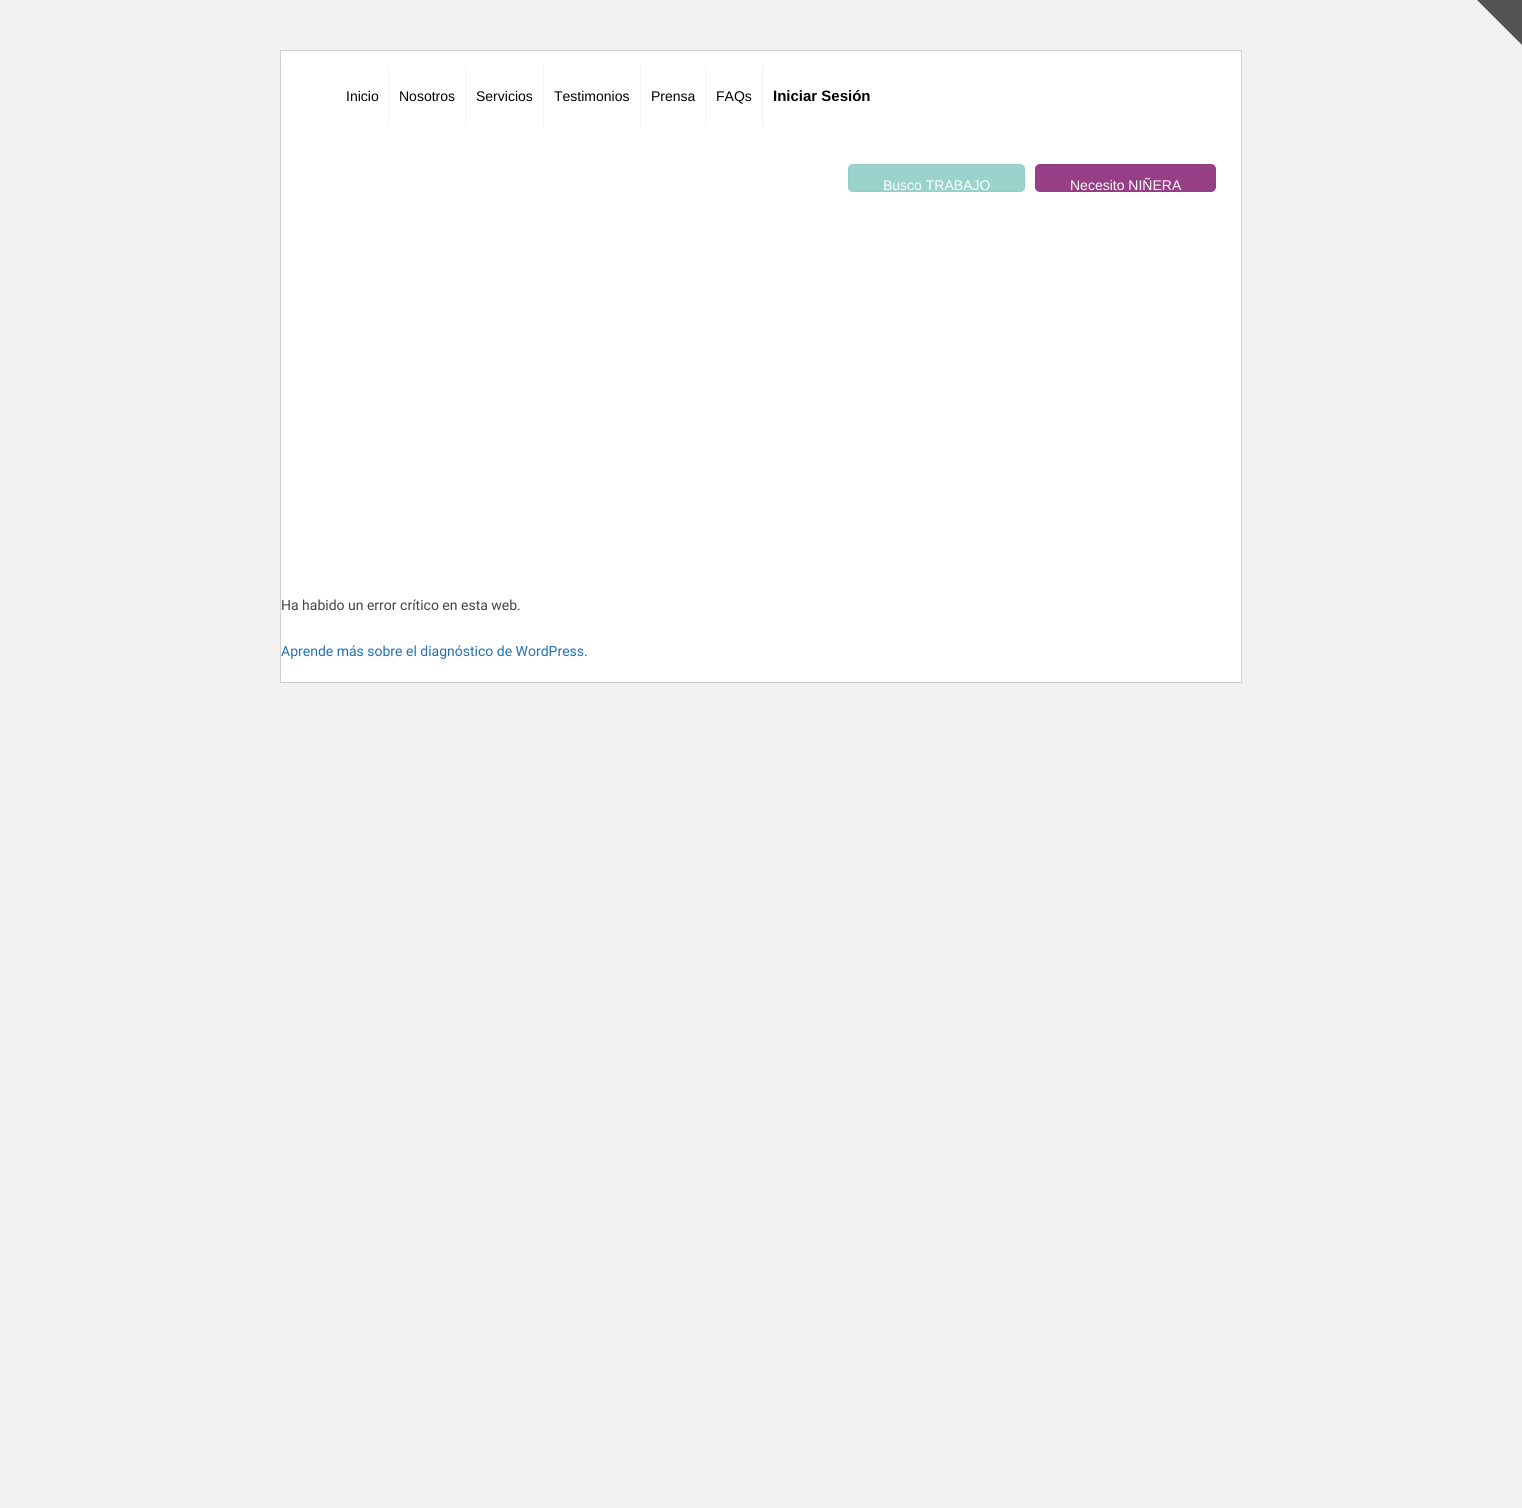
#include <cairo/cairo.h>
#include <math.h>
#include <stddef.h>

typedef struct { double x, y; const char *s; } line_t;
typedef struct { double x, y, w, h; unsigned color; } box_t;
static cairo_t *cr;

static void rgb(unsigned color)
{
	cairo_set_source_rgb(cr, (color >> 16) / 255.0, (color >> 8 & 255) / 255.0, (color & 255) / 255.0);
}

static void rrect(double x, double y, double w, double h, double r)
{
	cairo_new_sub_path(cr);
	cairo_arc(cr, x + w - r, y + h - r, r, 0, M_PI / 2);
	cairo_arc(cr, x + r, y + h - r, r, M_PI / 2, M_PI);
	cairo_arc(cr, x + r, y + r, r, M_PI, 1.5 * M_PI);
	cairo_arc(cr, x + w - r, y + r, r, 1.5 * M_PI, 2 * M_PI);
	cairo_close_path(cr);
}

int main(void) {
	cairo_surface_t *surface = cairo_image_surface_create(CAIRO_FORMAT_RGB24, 1522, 1508);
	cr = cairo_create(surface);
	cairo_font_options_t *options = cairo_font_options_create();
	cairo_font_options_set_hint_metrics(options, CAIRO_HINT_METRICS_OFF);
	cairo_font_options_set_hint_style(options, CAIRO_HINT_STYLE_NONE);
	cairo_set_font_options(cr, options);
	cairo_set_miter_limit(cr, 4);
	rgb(0xf1f1f1);
	cairo_paint(cr);
	rgb(0xffffff);
	cairo_rectangle(cr, 280.5, 50.5, 961, 632);
	cairo_fill_preserve(cr);
	rgb(0xccd0d4);
	cairo_set_line_width(cr, 1);
	cairo_stroke(cr);
	rgb(0x545454);
	cairo_new_path(cr);
	cairo_move_to(cr, 1522, 0);
	cairo_line_to(cr, 1522, 45);
	cairo_line_to(cr, 1477, 0);
	cairo_close_path(cr);
	cairo_fill(cr);
	{
		static const box_t items[] = {
			{388, 66, 1, 60, 0xf2f2f2},
			{465, 66, 1, 60, 0xf2f2f2},
			{543, 66, 1, 60, 0xf2f2f2},
			{640, 66, 1, 60, 0xf2f2f2},
			{705, 66, 1, 60, 0xf2f2f2},
			{762, 66, 1, 60, 0xf2f2f2},
		};
		for (size_t i = 0; i < sizeof items / sizeof *items; i++) {
			rgb(items[i].color);
			cairo_rectangle(cr, items[i].x, items[i].y, items[i].w, items[i].h);
			cairo_fill(cr);
		}
	}
	rgb(0x99d3cc);
	rrect(848, 164, 177, 28, 5);
	cairo_fill(cr);
	cairo_rectangle(cr, 848.5, 164.5, 176, 27);
	cairo_set_source_rgba(cr, 0, 0, 0, 0.03);
	cairo_stroke(cr);
	rgb(0x973f86);
	rrect(1035, 164, 181, 28, 5);
	cairo_fill(cr);
	cairo_rectangle(cr, 1035.5, 164.5, 180, 27);
	cairo_set_source_rgba(cr, 0, 0, 0, 0.03);
	cairo_stroke(cr);
	cairo_select_font_face(cr, "Liberation Sans", CAIRO_FONT_SLANT_NORMAL, CAIRO_FONT_WEIGHT_NORMAL);
	cairo_set_font_size(cr, 14);
	rgb(0x000000);
	{
		static const line_t items[] = {
			{346, 101, "Inicio"},
			{399, 101, "Nosotros"},
			{476, 101, "Servicios"},
			{554, 101, "Testimonios"},
			{651, 101, "Prensa"},
			{716, 101, "FAQs"},
		};
		for (size_t i = 0; i < sizeof items / sizeof *items; i++) {
			cairo_move_to(cr, items[i].x, items[i].y);
			cairo_show_text(cr, items[i].s);
		}
	}
	cairo_select_font_face(cr, "Liberation Sans", CAIRO_FONT_SLANT_NORMAL, CAIRO_FONT_WEIGHT_BOLD);
	cairo_set_font_size(cr, 15);
	cairo_move_to(cr, 773, 101);
	cairo_show_text(cr, "Iniciar Sesión");
	cairo_select_font_face(cr, "Liberation Sans", CAIRO_FONT_SLANT_NORMAL, CAIRO_FONT_WEIGHT_NORMAL);
	cairo_set_font_size(cr, 14);
	rgb(0xffffff);
	cairo_move_to(cr, 883, 190);
	cairo_show_text(cr, "Busco TRABAJO");
	cairo_move_to(cr, 1070, 190);
	cairo_show_text(cr, "Necesito NIÑERA");
	cairo_select_font_face(cr, "Roboto", CAIRO_FONT_SLANT_NORMAL, CAIRO_FONT_WEIGHT_NORMAL);
	rgb(0x444444);
	cairo_move_to(cr, 281, 610);
	cairo_show_text(cr, "Ha habido un error crítico en esta web.");
	rgb(0x2271b1);
	cairo_move_to(cr, 281, 656);
	cairo_show_text(cr, "Aprende más sobre el diagnóstico de WordPress.");
	cairo_surface_write_to_png(surface, "page.png");
	cairo_font_options_destroy(options);
	cairo_destroy(cr);
	cairo_surface_destroy(surface);
	return 0;
}
